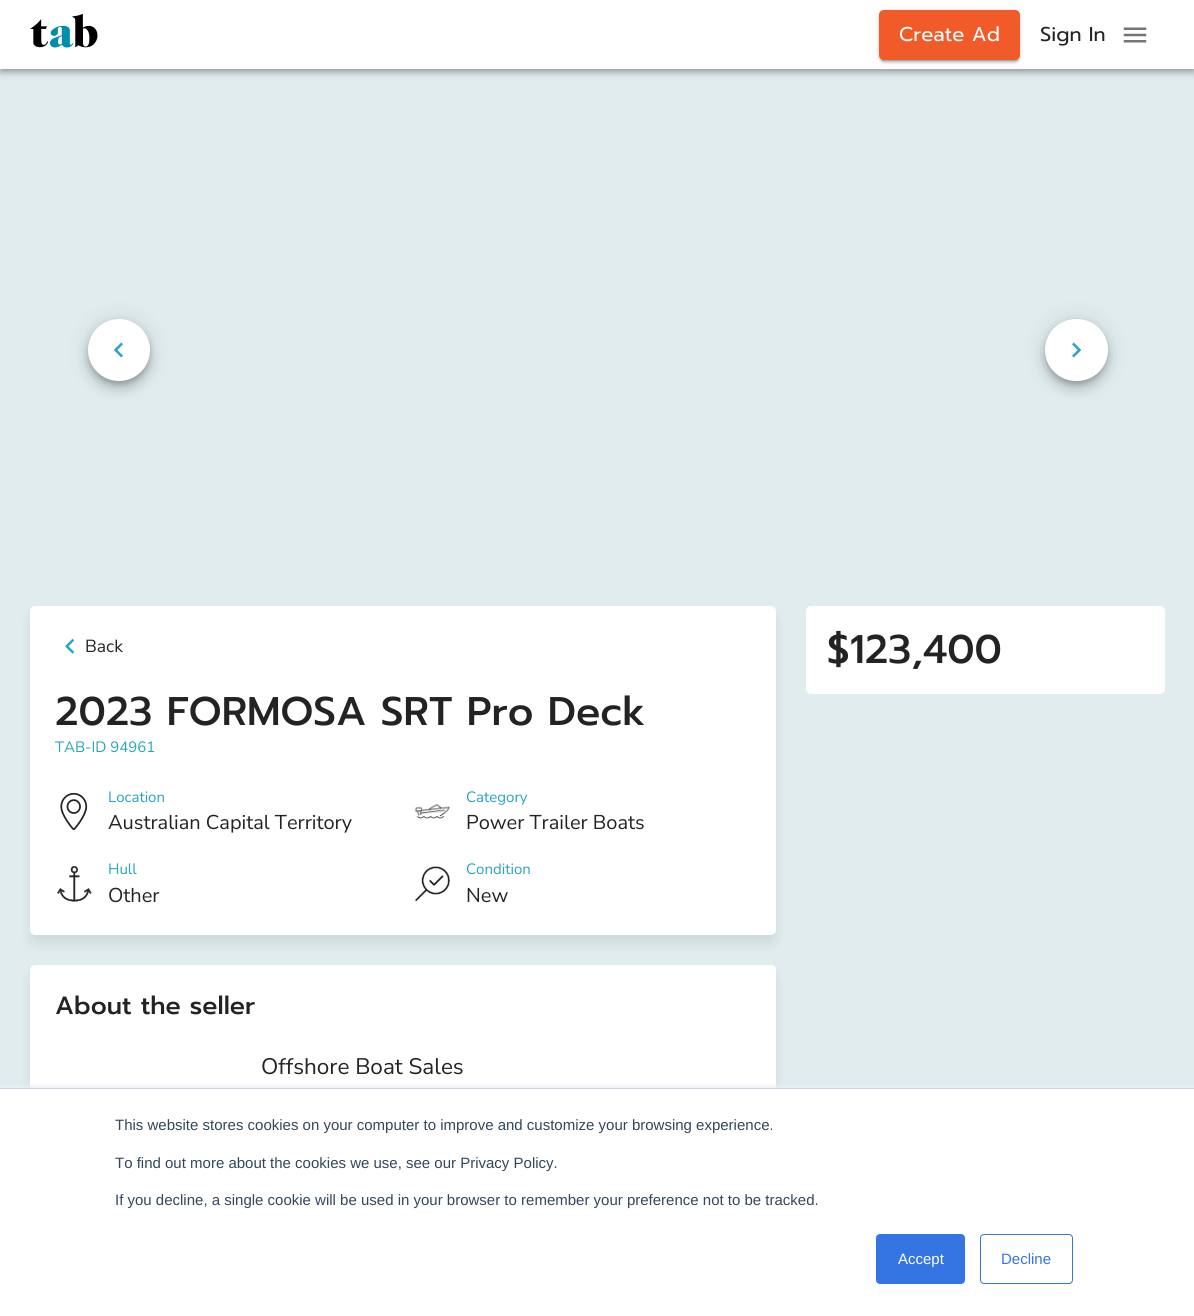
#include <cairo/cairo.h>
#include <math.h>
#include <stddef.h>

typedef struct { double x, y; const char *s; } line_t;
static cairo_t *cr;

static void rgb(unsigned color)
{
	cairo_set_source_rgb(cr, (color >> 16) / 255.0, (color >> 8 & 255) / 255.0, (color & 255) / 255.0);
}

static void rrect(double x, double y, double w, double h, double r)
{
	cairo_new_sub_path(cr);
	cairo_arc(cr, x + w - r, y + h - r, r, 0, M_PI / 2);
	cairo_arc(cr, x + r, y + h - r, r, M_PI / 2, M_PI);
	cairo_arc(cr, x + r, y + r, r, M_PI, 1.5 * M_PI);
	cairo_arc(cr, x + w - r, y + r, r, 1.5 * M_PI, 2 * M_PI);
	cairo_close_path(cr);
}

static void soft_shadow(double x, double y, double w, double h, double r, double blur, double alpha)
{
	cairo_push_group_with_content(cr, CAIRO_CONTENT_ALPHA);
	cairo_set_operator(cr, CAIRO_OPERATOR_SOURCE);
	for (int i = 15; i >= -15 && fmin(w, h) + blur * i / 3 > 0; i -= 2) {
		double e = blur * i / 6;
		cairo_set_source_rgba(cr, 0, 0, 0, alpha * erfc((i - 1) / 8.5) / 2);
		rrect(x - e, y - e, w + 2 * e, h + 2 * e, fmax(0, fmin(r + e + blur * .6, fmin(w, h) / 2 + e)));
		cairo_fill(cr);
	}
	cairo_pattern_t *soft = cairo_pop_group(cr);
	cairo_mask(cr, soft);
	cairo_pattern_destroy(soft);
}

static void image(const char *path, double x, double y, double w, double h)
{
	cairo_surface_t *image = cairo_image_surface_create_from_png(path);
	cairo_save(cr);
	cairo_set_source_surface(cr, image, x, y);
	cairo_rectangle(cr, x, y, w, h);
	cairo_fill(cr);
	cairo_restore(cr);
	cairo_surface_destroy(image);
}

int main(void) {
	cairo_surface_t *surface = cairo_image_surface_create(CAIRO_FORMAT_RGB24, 1194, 1316);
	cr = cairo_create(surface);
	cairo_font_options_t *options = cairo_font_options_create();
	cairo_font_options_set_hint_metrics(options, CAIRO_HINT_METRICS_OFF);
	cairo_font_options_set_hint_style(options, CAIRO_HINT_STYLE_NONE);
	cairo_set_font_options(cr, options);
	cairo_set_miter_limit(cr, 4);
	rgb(0xe0ecee);
	cairo_paint(cr);
	rgb(0x000000);
	soft_shadow(0, 1, 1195, 69, 0, 6, 0.12);
	soft_shadow(0, 5, 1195, 69, 0, 3, 0.14);
	soft_shadow(1, 4, 1193, 66, 0, 2.5, 0.2);
	rgb(0xffffff);
	cairo_rectangle(cr, 0, 0, 1194, 69);
	cairo_fill(cr);
	image("img/1.png", 30, 14, 68, 34);
	rgb(0x000000);
	soft_shadow(879, 11, 141, 50, 5, 3, 0.12);
	soft_shadow(879, 13, 141, 50, 5, 1, 0.14);
	soft_shadow(881, 16, 137, 45, 2.5, 0.5, 0.2);
	rgb(0xf15a29);
	rrect(879, 10, 141, 50, 5);
	cairo_fill(cr);
	image("img/2.png", 1123, 27, 24, 16);
	rgb(0x000000);
	soft_shadow(88, 320, 62, 63, 31, 11, 0.12);
	soft_shadow(88, 326, 62, 63, 31, 6, 0.14);
	soft_shadow(89, 324, 60, 60, 30, 3, 0.2);
	rgb(0xffffff);
	cairo_arc(cr, 119, 350, 31, 0, 2 * M_PI);
	cairo_fill(cr);
	image("img/3.png", 113, 342, 10, 16);
	rgb(0x000000);
	soft_shadow(1045, 320, 63, 63, 31.5, 11, 0.12);
	soft_shadow(1045, 326, 63, 63, 31.5, 6, 0.14);
	soft_shadow(1046, 324, 60, 60, 30, 3, 0.2);
	rgb(0xffffff);
	rrect(1045, 319, 63, 62, 31);
	cairo_fill(cr);
	image("img/4.png", 1072, 342, 10, 16);
	rgb(0x000000);
	soft_shadow(30, 615, 746, 329, 5, 6, 0.08);
	rgb(0xffffff);
	rrect(30, 606, 746, 329, 5);
	cairo_fill(cr);
	image("img/5.png", 65, 638, 10, 16);
	image("img/6.png", 60, 793, 28, 37);
	image("img/7.png", 414, 803, 36, 16);
	image("img/8.png", 57, 866, 35, 36);
	image("img/9.png", 415, 866, 35, 36);
	rgb(0x000000);
	soft_shadow(30, 974, 746, 259, 5, 6, 0.08);
	rgb(0xffffff);
	rrect(30, 965, 746, 259, 5);
	cairo_fill(cr);
	rrect(806, 606, 359, 88, 5);
	cairo_fill(cr);
	rgb(0xeaf0f6);
	soft_shadow(0, 1086, 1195, 229, 0, 2, 1);
	rgb(0xffffff);
	cairo_rectangle(cr, 0, 1089, 1194, 227);
	cairo_fill(cr);
	rgb(0xcbd6e2);
	cairo_rectangle(cr, 0, 1088, 1194, 1);
	cairo_fill(cr);
	rgb(0x3574e3);
	rrect(876.5, 1234.5, 88, 49, 3.5);
	cairo_fill_preserve(cr);
	cairo_set_line_width(cr, 1);
	cairo_stroke(cr);
	rrect(980.5, 1234.5, 92, 49, 3.5);
	cairo_stroke(cr);
	cairo_select_font_face(cr, "Prompt", CAIRO_FONT_SLANT_NORMAL, CAIRO_FONT_WEIGHT_NORMAL);
	cairo_set_font_size(cr, 20);
	rgb(0xffffff);
	cairo_move_to(cr, 899, 41);
	cairo_show_text(cr, "Create Ad");
	rgb(0x232323);
	cairo_move_to(cr, 1040, 41);
	cairo_show_text(cr, "Sign In");
	cairo_select_font_face(cr, "Nunito Sans", CAIRO_FONT_SLANT_NORMAL, CAIRO_FONT_WEIGHT_NORMAL);
	cairo_set_font_size(cr, 17.5);
	cairo_move_to(cr, 85, 652);
	cairo_show_text(cr, "Back");
	cairo_select_font_face(cr, "Prompt Medium", CAIRO_FONT_SLANT_NORMAL, CAIRO_FONT_WEIGHT_NORMAL);
	cairo_set_font_size(cr, 40);
	cairo_move_to(cr, 55, 725);
	cairo_show_text(cr, "2023 FORMOSA SRT Pro Deck");
	cairo_select_font_face(cr, "Nunito Sans", CAIRO_FONT_SLANT_NORMAL, CAIRO_FONT_WEIGHT_NORMAL);
	cairo_set_font_size(cr, 15);
	rgb(0x27a4bf);
	cairo_move_to(cr, 55, 752);
	cairo_show_text(cr, "TAB-ID 94961");
	cairo_move_to(cr, 108, 802);
	cairo_show_text(cr, "Location");
	cairo_set_font_size(cr, 20);
	rgb(0x232323);
	cairo_move_to(cr, 108, 829);
	cairo_show_text(cr, "Australian Capital Territory");
	cairo_set_font_size(cr, 15);
	rgb(0x27a4bf);
	cairo_move_to(cr, 466, 802);
	cairo_show_text(cr, "Category");
	cairo_set_font_size(cr, 20);
	rgb(0x232323);
	cairo_move_to(cr, 466, 829);
	cairo_show_text(cr, "Power Trailer Boats");
	cairo_set_font_size(cr, 15);
	rgb(0x27a4bf);
	cairo_move_to(cr, 108, 874);
	cairo_show_text(cr, "Hull");
	cairo_set_font_size(cr, 20);
	rgb(0x232323);
	cairo_move_to(cr, 108, 902);
	cairo_show_text(cr, "Other");
	cairo_set_font_size(cr, 15);
	rgb(0x27a4bf);
	cairo_move_to(cr, 466, 874);
	cairo_show_text(cr, "Condition");
	cairo_set_font_size(cr, 20);
	rgb(0x232323);
	cairo_move_to(cr, 466, 902);
	cairo_show_text(cr, "New");
	cairo_select_font_face(cr, "Prompt Medium", CAIRO_FONT_SLANT_NORMAL, CAIRO_FONT_WEIGHT_NORMAL);
	cairo_set_font_size(cr, 25);
	cairo_move_to(cr, 55, 1014);
	cairo_show_text(cr, "About the seller");
	cairo_select_font_face(cr, "Nunito Sans", CAIRO_FONT_SLANT_NORMAL, CAIRO_FONT_WEIGHT_NORMAL);
	cairo_set_font_size(cr, 22.5);
	cairo_move_to(cr, 261, 1074);
	cairo_show_text(cr, "Offshore Boat Sales");
	cairo_select_font_face(cr, "Prompt Medium", CAIRO_FONT_SLANT_NORMAL, CAIRO_FONT_WEIGHT_NORMAL);
	cairo_set_font_size(cr, 40);
	cairo_move_to(cr, 827, 663);
	cairo_show_text(cr, "$123,400");
	cairo_select_font_face(cr, "Liberation Sans", CAIRO_FONT_SLANT_NORMAL, CAIRO_FONT_WEIGHT_NORMAL);
	cairo_set_font_size(cr, 15);
	rgb(0x33475b);
	{
		static const line_t items[] = {
			{115, 1130, "This website stores cookies on your computer to improve and customize your browsing experience."},
			{115, 1168, "To find out more about the cookies we use, see our Privacy Policy."},
			{115, 1205, "If you decline, a single cookie will be used in your browser to remember your preference not to be tracked."},
		};
		for (size_t i = 0; i < sizeof items / sizeof *items; i++) {
			cairo_move_to(cr, items[i].x, items[i].y);
			cairo_show_text(cr, items[i].s);
		}
	}
	rgb(0xffffff);
	cairo_move_to(cr, 898, 1264);
	cairo_show_text(cr, "Accept");
	rgb(0x3574e3);
	cairo_move_to(cr, 1001, 1264);
	cairo_show_text(cr, "Decline");
	cairo_surface_write_to_png(surface, "page.png");
	cairo_font_options_destroy(options);
	cairo_destroy(cr);
	cairo_surface_destroy(surface);
	return 0;
}
